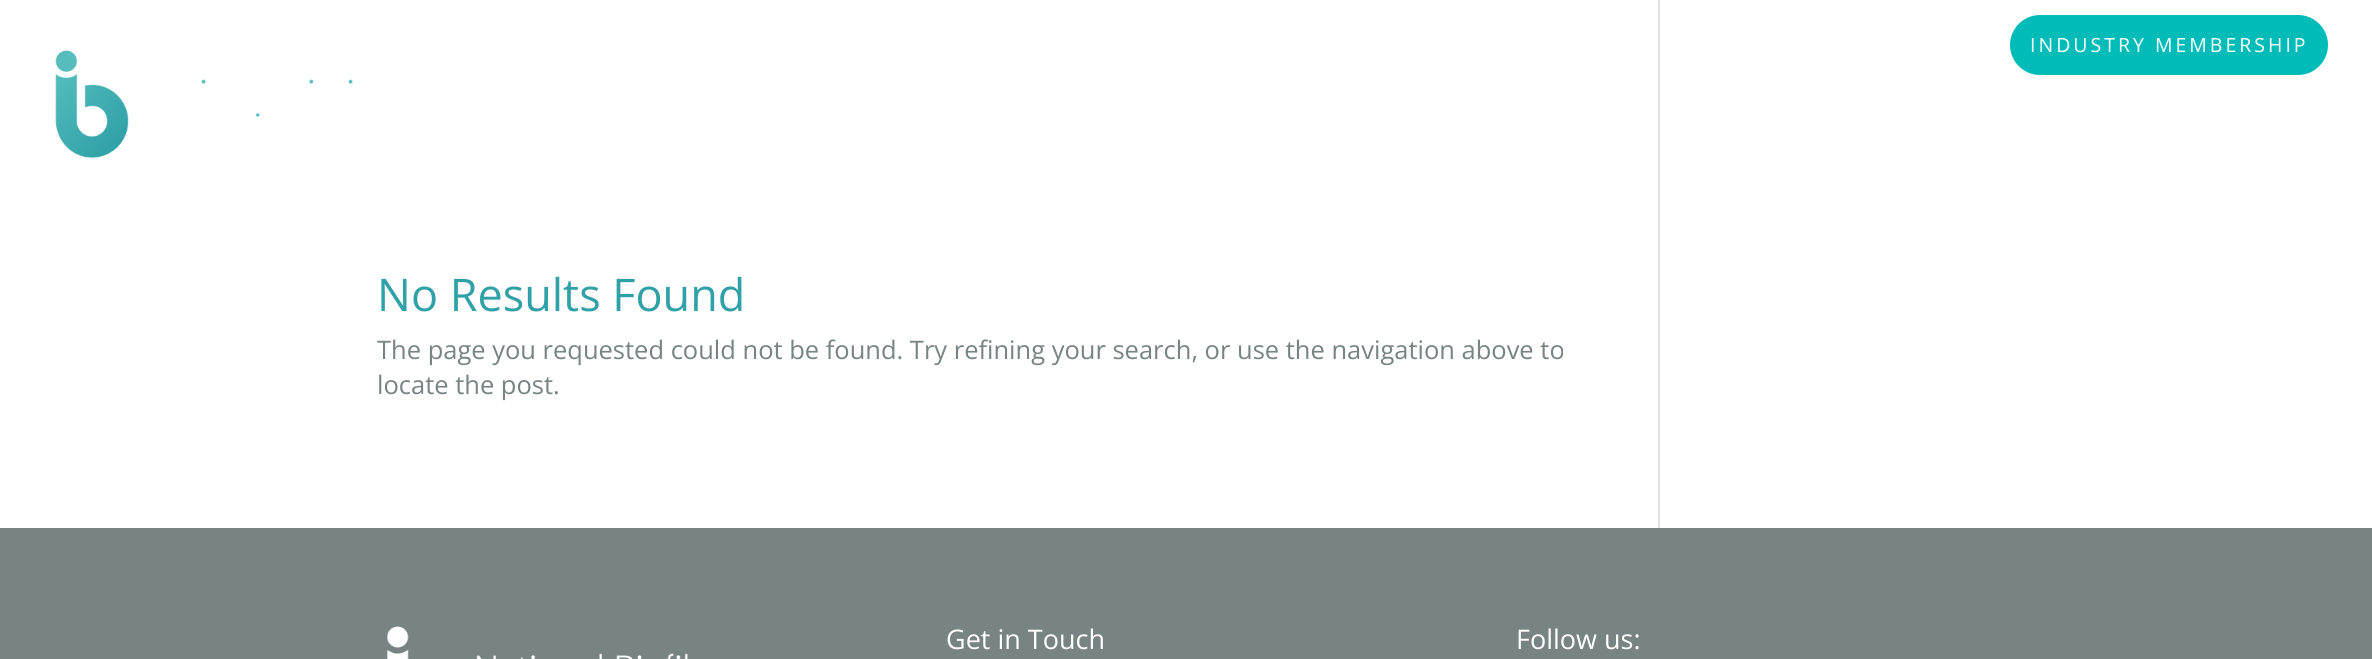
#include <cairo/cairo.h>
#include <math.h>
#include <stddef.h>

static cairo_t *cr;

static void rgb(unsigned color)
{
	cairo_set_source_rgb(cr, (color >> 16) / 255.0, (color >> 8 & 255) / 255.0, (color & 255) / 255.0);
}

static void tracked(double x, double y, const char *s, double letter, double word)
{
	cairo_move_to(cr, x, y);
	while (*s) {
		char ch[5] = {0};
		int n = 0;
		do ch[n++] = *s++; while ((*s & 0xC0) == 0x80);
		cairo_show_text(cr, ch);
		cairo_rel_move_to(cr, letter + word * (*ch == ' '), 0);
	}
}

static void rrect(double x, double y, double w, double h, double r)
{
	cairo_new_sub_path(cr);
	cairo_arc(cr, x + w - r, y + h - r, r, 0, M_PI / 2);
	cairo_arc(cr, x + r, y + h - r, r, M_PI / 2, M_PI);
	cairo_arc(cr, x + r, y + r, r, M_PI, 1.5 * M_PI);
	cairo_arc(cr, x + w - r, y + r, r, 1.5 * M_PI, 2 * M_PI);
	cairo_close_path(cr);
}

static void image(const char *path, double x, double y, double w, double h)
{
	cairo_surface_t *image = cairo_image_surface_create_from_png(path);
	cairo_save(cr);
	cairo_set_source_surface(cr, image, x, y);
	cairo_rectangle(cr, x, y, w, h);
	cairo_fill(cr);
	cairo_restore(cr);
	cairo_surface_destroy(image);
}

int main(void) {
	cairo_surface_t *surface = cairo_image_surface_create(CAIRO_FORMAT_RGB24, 2372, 659);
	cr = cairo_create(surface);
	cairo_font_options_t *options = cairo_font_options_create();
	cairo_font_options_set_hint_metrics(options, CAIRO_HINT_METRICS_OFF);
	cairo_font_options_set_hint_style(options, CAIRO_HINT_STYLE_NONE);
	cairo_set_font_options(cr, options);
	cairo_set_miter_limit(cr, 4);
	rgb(0xffffff);
	cairo_paint(cr);
	rgb(0x00bcb9);
	rrect(2010, 15, 318, 60, 30);
	cairo_fill(cr);
	image("img/1.png", 55, 50, 298, 108);
	rgb(0xe2e2e2);
	cairo_rectangle(cr, 1658, 0, 2, 528);
	cairo_fill(cr);
	rgb(0x778483);
	cairo_rectangle(cr, 0, 528, 2372, 131);
	cairo_fill(cr);
	image("img/2.png", 387, 626, 301, 33);
	cairo_select_font_face(cr, "Open Sans", CAIRO_FONT_SLANT_NORMAL, CAIRO_FONT_WEIGHT_NORMAL);
	cairo_set_font_size(cr, 19.5);
	rgb(0xffffff);
	tracked(2030, 52, "INDUSTRY MEMBERSHIP", 3, 0);
	cairo_set_font_size(cr, 45);
	rgb(0x30a2a7);
	cairo_move_to(cr, 377, 311);
	cairo_show_text(cr, "No Results Found");
	cairo_set_font_size(cr, 25.5);
	rgb(0x778483);
	cairo_move_to(cr, 377, 359);
	cairo_show_text(cr, "The page you requested could not be found. Try refining your search, or use the navigation above to");
	cairo_move_to(cr, 377, 394);
	cairo_show_text(cr, "locate the post.");
	cairo_set_font_size(cr, 27);
	rgb(0xffffff);
	cairo_move_to(cr, 946, 649);
	cairo_show_text(cr, "Get in Touch");
	cairo_move_to(cr, 1516, 649);
	cairo_show_text(cr, "Follow us:");
	cairo_surface_write_to_png(surface, "page.png");
	cairo_font_options_destroy(options);
	cairo_destroy(cr);
	cairo_surface_destroy(surface);
	return 0;
}
